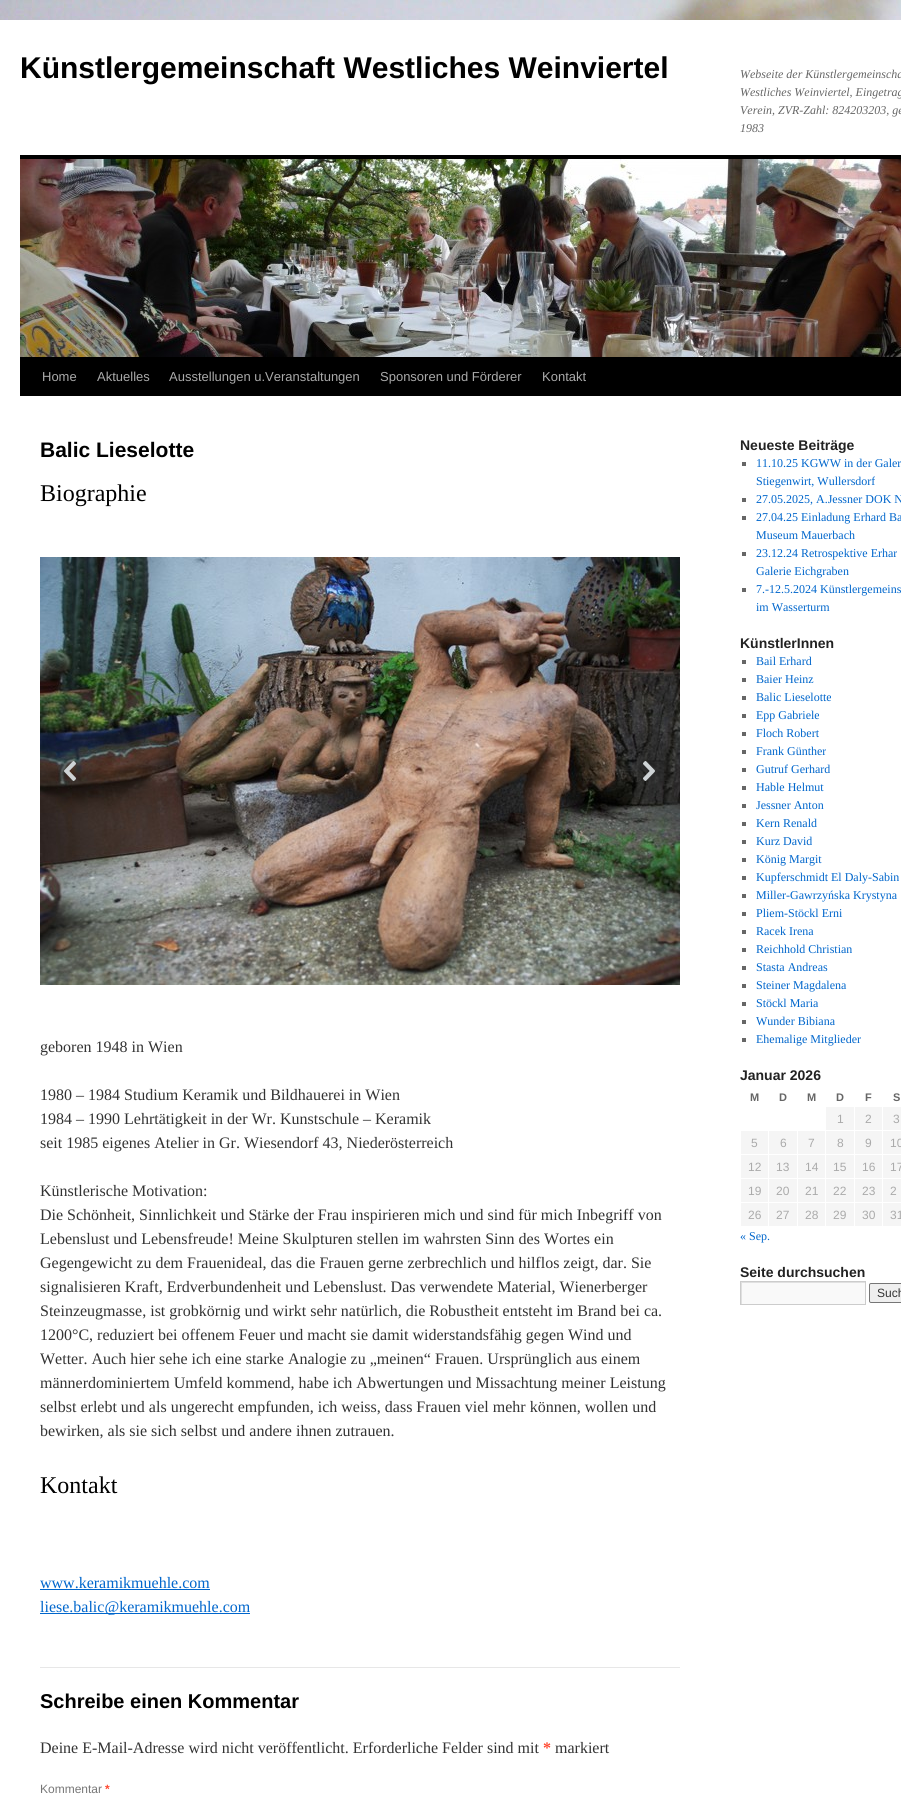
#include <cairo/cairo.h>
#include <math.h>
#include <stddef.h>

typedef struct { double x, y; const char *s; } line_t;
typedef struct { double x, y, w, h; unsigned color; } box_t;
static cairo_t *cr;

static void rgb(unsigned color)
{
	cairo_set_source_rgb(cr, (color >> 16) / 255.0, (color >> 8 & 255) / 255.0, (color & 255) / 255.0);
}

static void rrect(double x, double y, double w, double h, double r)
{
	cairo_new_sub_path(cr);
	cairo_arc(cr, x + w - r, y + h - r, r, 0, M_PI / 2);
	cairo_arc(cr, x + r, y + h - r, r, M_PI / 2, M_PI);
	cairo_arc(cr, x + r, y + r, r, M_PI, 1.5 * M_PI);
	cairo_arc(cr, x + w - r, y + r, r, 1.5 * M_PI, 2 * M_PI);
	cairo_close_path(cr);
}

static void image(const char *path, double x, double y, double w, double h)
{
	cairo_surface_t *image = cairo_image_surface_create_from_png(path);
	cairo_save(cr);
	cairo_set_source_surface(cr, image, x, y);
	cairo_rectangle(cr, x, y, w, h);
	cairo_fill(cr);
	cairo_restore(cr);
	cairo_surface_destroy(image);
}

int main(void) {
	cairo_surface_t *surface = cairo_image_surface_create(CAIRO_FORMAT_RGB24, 901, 1796);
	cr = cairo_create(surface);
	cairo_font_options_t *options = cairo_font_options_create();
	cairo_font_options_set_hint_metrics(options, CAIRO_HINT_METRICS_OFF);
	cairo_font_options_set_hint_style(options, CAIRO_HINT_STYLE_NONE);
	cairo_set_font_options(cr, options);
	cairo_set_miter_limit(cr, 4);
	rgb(0xffffff);
	cairo_paint(cr);
	image("img/1.png", 0, 0, 901, 20);
	rgb(0x000000);
	cairo_rectangle(cr, 20, 155, 881, 4);
	cairo_fill(cr);
	cairo_rectangle(cr, 20, 357, 881, 39);
	cairo_fill(cr);
	image("img/2.png", 20, 159, 881, 198);
	image("img/3.png", 40, 557, 640, 428);
	image("img/4.png", 64, 761, 12, 20);
	image("img/5.png", 643, 761, 12, 20);
	{
		static const box_t items[] = {
			{40, 1589, 170, 1, 0x0066cc},
			{40, 1613, 210, 1, 0x0066cc},
			{40, 1667, 640, 1, 0xe7e7e7},
			{742, 462, 4, 4, 0x666666},
			{742, 498, 4, 4, 0x666666},
			{742, 516, 4, 4, 0x666666},
			{742, 552, 4, 4, 0x666666},
			{742, 588, 4, 4, 0x666666},
			{742, 660, 4, 4, 0x666666},
			{742, 678, 4, 4, 0x666666},
			{742, 696, 4, 4, 0x666666},
			{742, 714, 4, 4, 0x666666},
			{742, 732, 4, 4, 0x666666},
			{742, 750, 4, 4, 0x666666},
			{742, 768, 4, 4, 0x666666},
			{742, 786, 4, 4, 0x666666},
			{742, 804, 4, 4, 0x666666},
			{742, 822, 4, 4, 0x666666},
			{742, 840, 4, 4, 0x666666},
			{742, 858, 4, 4, 0x666666},
			{742, 876, 4, 4, 0x666666},
			{742, 894, 4, 4, 0x666666},
			{742, 912, 4, 4, 0x666666},
			{742, 930, 4, 4, 0x666666},
			{742, 948, 4, 4, 0x666666},
			{742, 966, 4, 4, 0x666666},
			{742, 984, 4, 4, 0x666666},
			{742, 1002, 4, 4, 0x666666},
			{742, 1020, 4, 4, 0x666666},
			{742, 1038, 4, 4, 0x666666},
			{826, 1107, 28, 23, 0xf5f5f5},
			{855, 1107, 27, 23, 0xf5f5f5},
			{883, 1107, 18, 23, 0xf5f5f5},
			{741, 1131, 27, 23, 0xf5f5f5},
			{769, 1131, 28, 23, 0xf5f5f5},
			{798, 1131, 27, 23, 0xf5f5f5},
			{826, 1131, 28, 23, 0xf5f5f5},
			{855, 1131, 27, 23, 0xf5f5f5},
			{883, 1131, 18, 23, 0xf5f5f5},
			{741, 1155, 27, 23, 0xf5f5f5},
			{769, 1155, 28, 23, 0xf5f5f5},
			{798, 1155, 27, 23, 0xf5f5f5},
			{826, 1155, 28, 23, 0xf5f5f5},
			{855, 1155, 27, 23, 0xf5f5f5},
			{883, 1155, 18, 23, 0xf5f5f5},
			{741, 1179, 27, 23, 0xf5f5f5},
			{769, 1179, 28, 23, 0xf5f5f5},
			{798, 1179, 27, 23, 0xf5f5f5},
			{826, 1179, 28, 23, 0xf5f5f5},
			{855, 1179, 27, 23, 0xf5f5f5},
			{883, 1179, 18, 23, 0xf5f5f5},
			{741, 1203, 27, 23, 0xf5f5f5},
			{769, 1203, 28, 23, 0xf5f5f5},
			{798, 1203, 27, 23, 0xf5f5f5},
			{826, 1203, 28, 23, 0xf5f5f5},
			{855, 1203, 27, 23, 0xf5f5f5},
			{883, 1203, 18, 23, 0xf5f5f5},
			{742, 1283, 123, 21, 0xf9f9f9},
		};
		for (size_t i = 0; i < sizeof items / sizeof *items; i++) {
			rgb(items[i].color);
			cairo_rectangle(cr, items[i].x, items[i].y, items[i].w, items[i].h);
			cairo_fill(cr);
		}
	}
	cairo_save(cr);
	cairo_rectangle(cr, 741, 1282, 124, 22);
	cairo_clip(cr);
	rgb(0xe0e0e0);
	cairo_set_fill_rule(cr, CAIRO_FILL_RULE_EVEN_ODD);
	cairo_new_path(cr);
	cairo_move_to(cr, 642, 1183);
	cairo_line_to(cr, 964, 1183);
	cairo_line_to(cr, 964, 1403);
	cairo_line_to(cr, 642, 1403);
	cairo_close_path(cr);
	cairo_move_to(cr, 742, 1283);
	cairo_line_to(cr, 866, 1283);
	cairo_line_to(cr, 866, 1305);
	cairo_line_to(cr, 742, 1305);
	cairo_close_path(cr);
	cairo_fill(cr);
	cairo_restore(cr);
	cairo_rectangle(cr, 740.5, 1281.5, 125, 23);
	rgb(0xcccccc);
	cairo_set_line_width(cr, 1);
	cairo_stroke(cr);
	rgb(0xefefef);
	rrect(869.5, 1283.5, 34, 19, 1.5);
	cairo_fill_preserve(cr);
	rgb(0x767676);
	cairo_stroke(cr);
	cairo_select_font_face(cr, "Liberation Sans", CAIRO_FONT_SLANT_NORMAL, CAIRO_FONT_WEIGHT_BOLD);
	cairo_set_font_size(cr, 30);
	rgb(0x000000);
	cairo_move_to(cr, 20, 78);
	cairo_show_text(cr, "Künstlergemeinschaft Westliches Weinviertel");
	cairo_select_font_face(cr, "Liberation Serif", CAIRO_FONT_SLANT_ITALIC, CAIRO_FONT_WEIGHT_NORMAL);
	cairo_set_font_size(cr, 12);
	rgb(0x666666);
	{
		static const line_t items[] = {
			{740, 78, "Webseite der Künstlergemeinscha"},
			{740, 96, "Westliches Weinviertel, Eingetrag"},
			{740, 114, "Verein, ZVR-Zahl: 824203203, ge"},
			{740, 132, "1983"},
		};
		for (size_t i = 0; i < sizeof items / sizeof *items; i++) {
			cairo_move_to(cr, items[i].x, items[i].y);
			cairo_show_text(cr, items[i].s);
		}
	}
	cairo_select_font_face(cr, "Liberation Sans", CAIRO_FONT_SLANT_NORMAL, CAIRO_FONT_WEIGHT_NORMAL);
	cairo_set_font_size(cr, 13);
	rgb(0xaaaaaa);
	{
		static const line_t items[] = {
			{42, 381, "Home"},
			{97, 381, "Aktuelles"},
			{169, 381, "Ausstellungen u.Veranstaltungen"},
			{380, 381, "Sponsoren und Förderer"},
			{542, 381, "Kontakt"},
		};
		for (size_t i = 0; i < sizeof items / sizeof *items; i++) {
			cairo_move_to(cr, items[i].x, items[i].y);
			cairo_show_text(cr, items[i].s);
		}
	}
	cairo_select_font_face(cr, "Liberation Sans", CAIRO_FONT_SLANT_NORMAL, CAIRO_FONT_WEIGHT_BOLD);
	cairo_set_font_size(cr, 21);
	rgb(0x000000);
	cairo_move_to(cr, 40, 457);
	cairo_show_text(cr, "Balic Lieselotte");
	cairo_select_font_face(cr, "Liberation Serif", CAIRO_FONT_SLANT_NORMAL, CAIRO_FONT_WEIGHT_NORMAL);
	cairo_set_font_size(cr, 24);
	cairo_move_to(cr, 40, 501);
	cairo_show_text(cr, "Biographie");
	cairo_set_font_size(cr, 16);
	rgb(0x333333);
	{
		static const line_t items[] = {
			{40, 1052, "geboren 1948 in Wien"},
			{40, 1100, "1980 – 1984 Studium Keramik und Bildhauerei in Wien"},
			{40, 1124, "1984 – 1990 Lehrtätigkeit in der Wr. Kunstschule – Keramik"},
			{40, 1148, "seit 1985 eigenes Atelier in Gr. Wiesendorf 43, Niederösterreich"},
			{40, 1196, "Künstlerische Motivation:"},
			{40, 1220, "Die Schönheit, Sinnlichkeit und Stärke der Frau inspirieren mich und sind für mich Inbegriff von"},
			{40, 1244, "Lebenslust und Lebensfreude! Meine Skulpturen stellen im wahrsten Sinn des Wortes ein"},
			{40, 1268, "Gegengewicht zu dem Frauenideal, das die Frauen gerne zerbrechlich und hilflos zeigt, dar. Sie"},
			{40, 1292, "signalisieren Kraft, Erdverbundenheit und Lebenslust. Das verwendete Material, Wienerberger"},
			{40, 1316, "Steinzeugmasse, ist grobkörnig und wirkt sehr natürlich, die Robustheit entsteht im Brand bei ca."},
			{40, 1340, "1200°C, reduziert bei offenem Feuer und macht sie damit widerstandsfähig gegen Wind und"},
			{40, 1364, "Wetter. Auch hier sehe ich eine starke Analogie zu „meinen“ Frauen. Ursprünglich aus einem"},
			{40, 1388, "männerdominiertem Umfeld kommend, habe ich Abwertungen und Missachtung meiner Leistung"},
			{40, 1412, "selbst erlebt und als ungerecht empfunden, ich weiss, dass Frauen viel mehr können, wollen und"},
			{40, 1436, "bewirken, als sie sich selbst und andere ihnen zutrauen."},
		};
		for (size_t i = 0; i < sizeof items / sizeof *items; i++) {
			cairo_move_to(cr, items[i].x, items[i].y);
			cairo_show_text(cr, items[i].s);
		}
	}
	cairo_set_font_size(cr, 24);
	rgb(0x000000);
	cairo_move_to(cr, 40, 1493);
	cairo_show_text(cr, "Kontakt");
	cairo_set_font_size(cr, 16);
	rgb(0x0066cc);
	cairo_move_to(cr, 40, 1588);
	cairo_show_text(cr, "www.keramikmuehle.com");
	cairo_move_to(cr, 40, 1612);
	cairo_show_text(cr, "liese.balic@keramikmuehle.com");
	cairo_select_font_face(cr, "Liberation Sans", CAIRO_FONT_SLANT_NORMAL, CAIRO_FONT_WEIGHT_BOLD);
	cairo_set_font_size(cr, 20);
	rgb(0x000000);
	cairo_move_to(cr, 40, 1708);
	cairo_show_text(cr, "Schreibe einen Kommentar");
	cairo_select_font_face(cr, "Liberation Serif", CAIRO_FONT_SLANT_NORMAL, CAIRO_FONT_WEIGHT_NORMAL);
	cairo_set_font_size(cr, 16);
	rgb(0x333333);
	cairo_move_to(cr, 40, 1753);
	cairo_show_text(cr, "Deine E-Mail-Adresse wird nicht veröffentlicht. Erforderliche Felder sind mit");
	cairo_select_font_face(cr, "Liberation Serif", CAIRO_FONT_SLANT_NORMAL, CAIRO_FONT_WEIGHT_BOLD);
	rgb(0xff4b33);
	cairo_move_to(cr, 543, 1753);
	cairo_show_text(cr, "*");
	cairo_select_font_face(cr, "Liberation Serif", CAIRO_FONT_SLANT_NORMAL, CAIRO_FONT_WEIGHT_NORMAL);
	rgb(0x333333);
	cairo_move_to(cr, 555, 1753);
	cairo_show_text(cr, "markiert");
	cairo_select_font_face(cr, "Liberation Sans", CAIRO_FONT_SLANT_NORMAL, CAIRO_FONT_WEIGHT_NORMAL);
	cairo_set_font_size(cr, 12);
	rgb(0x777777);
	cairo_move_to(cr, 40, 1793);
	cairo_show_text(cr, "Kommentar");
	cairo_select_font_face(cr, "Liberation Sans", CAIRO_FONT_SLANT_NORMAL, CAIRO_FONT_WEIGHT_BOLD);
	rgb(0xff4b33);
	cairo_move_to(cr, 105, 1793);
	cairo_show_text(cr, "*");
	cairo_set_font_size(cr, 14);
	rgb(0x222222);
	cairo_move_to(cr, 740, 450);
	cairo_show_text(cr, "Neueste Beiträge");
	cairo_select_font_face(cr, "Liberation Serif", CAIRO_FONT_SLANT_NORMAL, CAIRO_FONT_WEIGHT_NORMAL);
	cairo_set_font_size(cr, 12);
	rgb(0x0066cc);
	{
		static const line_t items[] = {
			{756, 467, "11.10.25 KGWW in der Galer"},
			{756, 485, "Stiegenwirt, Wullersdorf"},
			{756, 503, "27.05.2025, A.Jessner DOK N"},
			{756, 521, "27.04.25 Einladung Erhard Ba"},
			{756, 539, "Museum Mauerbach"},
			{756, 557, "23.12.24 Retrospektive Erhar"},
			{756, 575, "Galerie Eichgraben"},
			{756, 593, "7.-12.5.2024 Künstlergemeins"},
			{756, 611, "im Wasserturm"},
		};
		for (size_t i = 0; i < sizeof items / sizeof *items; i++) {
			cairo_move_to(cr, items[i].x, items[i].y);
			cairo_show_text(cr, items[i].s);
		}
	}
	cairo_select_font_face(cr, "Liberation Sans", CAIRO_FONT_SLANT_NORMAL, CAIRO_FONT_WEIGHT_BOLD);
	cairo_set_font_size(cr, 14);
	rgb(0x222222);
	cairo_move_to(cr, 740, 648);
	cairo_show_text(cr, "KünstlerInnen");
	cairo_select_font_face(cr, "Liberation Serif", CAIRO_FONT_SLANT_NORMAL, CAIRO_FONT_WEIGHT_NORMAL);
	cairo_set_font_size(cr, 12);
	rgb(0x0066cc);
	{
		static const line_t items[] = {
			{756, 665, "Bail Erhard"},
			{756, 683, "Baier Heinz"},
			{756, 701, "Balic Lieselotte"},
			{756, 719, "Epp Gabriele"},
			{756, 737, "Floch Robert"},
			{756, 755, "Frank Günther"},
			{756, 773, "Gutruf Gerhard"},
			{756, 791, "Hable Helmut"},
			{756, 809, "Jessner Anton"},
			{756, 827, "Kern Renald"},
			{756, 845, "Kurz David"},
			{756, 863, "König Margit"},
			{756, 881, "Kupferschmidt El Daly-Sabin"},
			{756, 899, "Miller-Gawrzyńska Krystyna"},
			{756, 917, "Pliem-Stöckl Erni"},
			{756, 935, "Racek Irena"},
			{756, 953, "Reichhold Christian"},
			{756, 971, "Stasta Andreas"},
			{756, 989, "Steiner Magdalena"},
			{756, 1007, "Stöckl Maria"},
			{756, 1025, "Wunder Bibiana"},
			{756, 1043, "Ehemalige Mitglieder"},
		};
		for (size_t i = 0; i < sizeof items / sizeof *items; i++) {
			cairo_move_to(cr, items[i].x, items[i].y);
			cairo_show_text(cr, items[i].s);
		}
	}
	cairo_select_font_face(cr, "Liberation Sans", CAIRO_FONT_SLANT_NORMAL, CAIRO_FONT_WEIGHT_BOLD);
	cairo_set_font_size(cr, 14);
	rgb(0x222222);
	cairo_move_to(cr, 740, 1080);
	cairo_show_text(cr, "Januar 2026");
	cairo_set_font_size(cr, 11);
	rgb(0x666666);
	{
		static const line_t items[] = {
			{750, 1101, "M"},
			{779, 1101, "D"},
			{807, 1101, "M"},
			{836, 1101, "D"},
			{865, 1101, "F"},
			{893, 1101, "S"},
		};
		for (size_t i = 0; i < sizeof items / sizeof *items; i++) {
			cairo_move_to(cr, items[i].x, items[i].y);
			cairo_show_text(cr, items[i].s);
		}
	}
	cairo_select_font_face(cr, "Liberation Sans", CAIRO_FONT_SLANT_NORMAL, CAIRO_FONT_WEIGHT_NORMAL);
	cairo_set_font_size(cr, 12);
	rgb(0xaaaaaa);
	{
		static const line_t items[] = {
			{837, 1123, "1"},
			{865, 1123, "2"},
			{893, 1123, "3"},
			{751, 1147, "5"},
			{780, 1147, "6"},
			{808, 1147, "7"},
			{837, 1147, "8"},
			{865, 1147, "9"},
			{890, 1147, "10"},
			{748, 1171, "12"},
			{776, 1171, "13"},
			{805, 1171, "14"},
			{833, 1171, "15"},
			{862, 1171, "16"},
			{890, 1171, "17"},
			{748, 1195, "19"},
			{776, 1195, "20"},
			{805, 1195, "21"},
			{833, 1195, "22"},
			{862, 1195, "23"},
			{890, 1195, "2"},
			{748, 1219, "26"},
			{776, 1219, "27"},
			{805, 1219, "28"},
			{833, 1219, "29"},
			{862, 1219, "30"},
			{890, 1219, "31"},
		};
		for (size_t i = 0; i < sizeof items / sizeof *items; i++) {
			cairo_move_to(cr, items[i].x, items[i].y);
			cairo_show_text(cr, items[i].s);
		}
	}
	cairo_select_font_face(cr, "Liberation Serif", CAIRO_FONT_SLANT_NORMAL, CAIRO_FONT_WEIGHT_NORMAL);
	rgb(0x0066cc);
	cairo_move_to(cr, 740, 1240);
	cairo_show_text(cr, "« Sep.");
	cairo_select_font_face(cr, "Liberation Sans", CAIRO_FONT_SLANT_NORMAL, CAIRO_FONT_WEIGHT_BOLD);
	cairo_set_font_size(cr, 14);
	rgb(0x222222);
	cairo_move_to(cr, 740, 1277);
	cairo_show_text(cr, "Seite durchsuchen");
	cairo_select_font_face(cr, "Liberation Sans", CAIRO_FONT_SLANT_NORMAL, CAIRO_FONT_WEIGHT_NORMAL);
	cairo_set_font_size(cr, 12);
	rgb(0x333333);
	cairo_move_to(cr, 877, 1297);
	cairo_show_text(cr, "Such");
	cairo_surface_write_to_png(surface, "page.png");
	cairo_font_options_destroy(options);
	cairo_destroy(cr);
	cairo_surface_destroy(surface);
	return 0;
}
